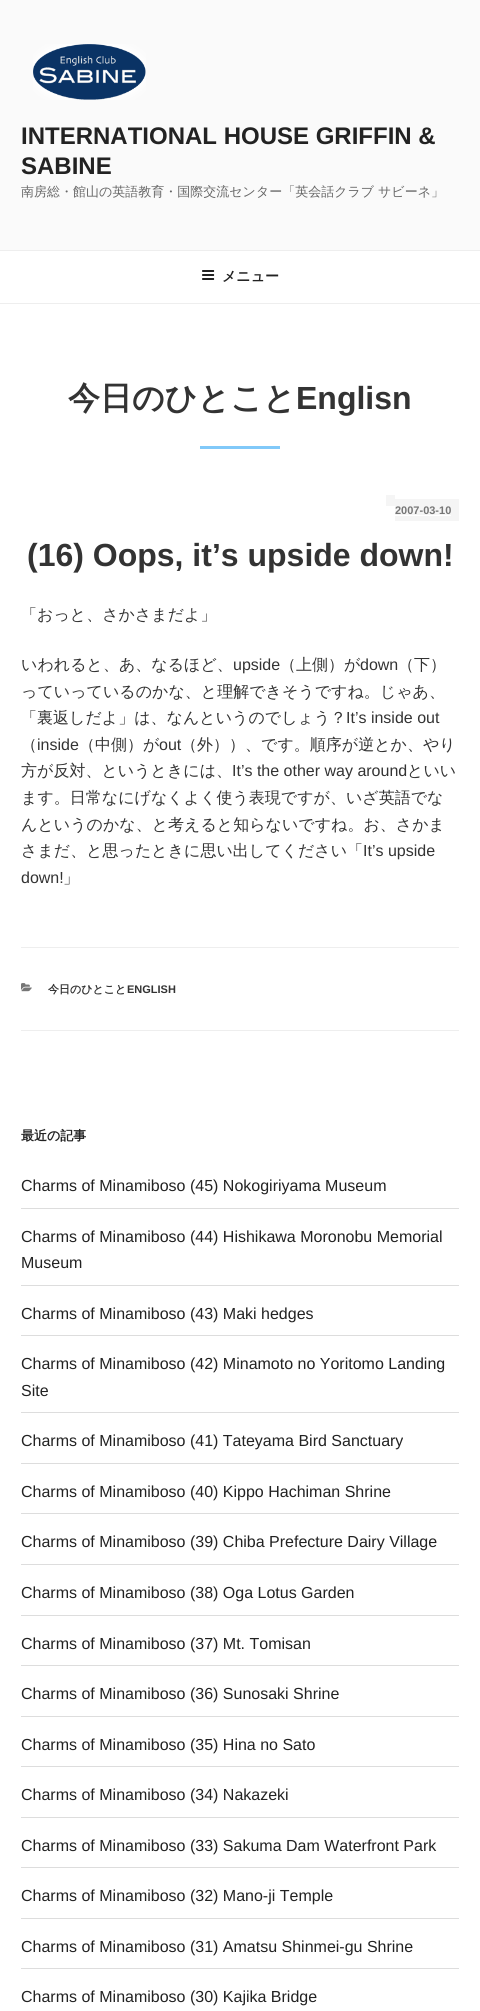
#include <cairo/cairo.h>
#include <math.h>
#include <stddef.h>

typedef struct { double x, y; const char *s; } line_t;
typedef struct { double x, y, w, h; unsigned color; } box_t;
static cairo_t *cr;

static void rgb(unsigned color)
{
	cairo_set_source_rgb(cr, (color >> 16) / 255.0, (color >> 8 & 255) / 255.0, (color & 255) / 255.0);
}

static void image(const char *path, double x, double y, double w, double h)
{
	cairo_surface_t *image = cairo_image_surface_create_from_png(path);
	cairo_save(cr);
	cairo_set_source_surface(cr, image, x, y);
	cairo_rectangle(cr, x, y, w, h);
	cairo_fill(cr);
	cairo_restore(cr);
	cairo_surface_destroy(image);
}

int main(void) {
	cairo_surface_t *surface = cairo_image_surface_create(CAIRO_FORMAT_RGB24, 480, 2011);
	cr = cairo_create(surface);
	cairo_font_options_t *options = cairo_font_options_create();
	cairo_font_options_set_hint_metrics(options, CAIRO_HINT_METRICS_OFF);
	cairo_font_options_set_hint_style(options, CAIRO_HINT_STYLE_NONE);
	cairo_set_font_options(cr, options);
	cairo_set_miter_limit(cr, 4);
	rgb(0xffffff);
	cairo_paint(cr);
	rgb(0xfafafa);
	cairo_rectangle(cr, 0, 0, 480, 250);
	cairo_fill(cr);
	image("img/1.png", 33, 44, 113, 56);
	rgb(0xeeeeee);
	cairo_rectangle(cr, 0, 250, 480, 1);
	cairo_fill(cr);
	cairo_rectangle(cr, 0, 303, 480, 1);
	cairo_fill(cr);
	image("img/2.png", 202, 270, 13, 10);
	{
		static const box_t items[] = {
			{200, 446, 80, 3, 0x81c9f9},
			{386, 495, 9, 11, 0xf5f5f5},
			{395, 499, 64, 22, 0xf5f5f5},
			{395, 515, 56, 1, 0xffffff},
			{21, 947, 438, 1, 0xeeeeee},
			{21, 1030, 438, 1, 0xeeeeee},
		};
		for (size_t i = 0; i < sizeof items / sizeof *items; i++) {
			rgb(items[i].color);
			cairo_rectangle(cr, items[i].x, items[i].y, items[i].w, items[i].h);
			cairo_fill(cr);
		}
	}
	image("img/3.png", 21, 983, 11, 9);
	{
		static const box_t items[] = {
			{21, 1208, 438, 1, 0xdddddd},
			{21, 1285, 438, 1, 0xdddddd},
			{21, 1335, 438, 1, 0xdddddd},
			{21, 1412, 438, 1, 0xdddddd},
			{21, 1463, 438, 1, 0xdddddd},
			{21, 1513, 438, 1, 0xdddddd},
			{21, 1564, 438, 1, 0xdddddd},
			{21, 1615, 438, 1, 0xdddddd},
			{21, 1665, 438, 1, 0xdddddd},
			{21, 1716, 438, 1, 0xdddddd},
			{21, 1766, 438, 1, 0xdddddd},
			{21, 1817, 438, 1, 0xdddddd},
			{21, 1867, 438, 1, 0xdddddd},
			{21, 1918, 438, 1, 0xdddddd},
			{21, 1968, 438, 1, 0xdddddd},
		};
		for (size_t i = 0; i < sizeof items / sizeof *items; i++) {
			rgb(items[i].color);
			cairo_rectangle(cr, items[i].x, items[i].y, items[i].w, items[i].h);
			cairo_fill(cr);
		}
	}
	cairo_select_font_face(cr, "Liberation Sans", CAIRO_FONT_SLANT_NORMAL, CAIRO_FONT_WEIGHT_BOLD);
	cairo_set_font_size(cr, 24);
	rgb(0x222222);
	cairo_move_to(cr, 21, 144);
	cairo_show_text(cr, "INTERNATIONAL HOUSE GRIFFIN &");
	cairo_move_to(cr, 21, 174);
	cairo_show_text(cr, "SABINE");
	cairo_select_font_face(cr, "WenQuanYi Zen Hei Medium", CAIRO_FONT_SLANT_NORMAL, CAIRO_FONT_WEIGHT_NORMAL);
	cairo_set_font_size(cr, 13);
	rgb(0x666666);
	cairo_move_to(cr, 21, 196);
	cairo_show_text(cr, "南房総・館山の英語教育・国際交流センター「英会話クラブ サビーネ」");
	cairo_select_font_face(cr, "WenQuanYi Zen Hei", CAIRO_FONT_SLANT_NORMAL, CAIRO_FONT_WEIGHT_BOLD);
	cairo_set_font_size(cr, 14);
	rgb(0x222222);
	cairo_move_to(cr, 222, 281);
	cairo_show_text(cr, "メニュー");
	cairo_set_font_size(cr, 32);
	rgb(0x333333);
	cairo_move_to(cr, 68, 409);
	cairo_show_text(cr, "今日のひとこと");
	cairo_select_font_face(cr, "Liberation Sans", CAIRO_FONT_SLANT_NORMAL, CAIRO_FONT_WEIGHT_BOLD);
	cairo_move_to(cr, 296, 409);
	cairo_show_text(cr, "Englisn");
	cairo_set_font_size(cr, 11);
	rgb(0x767676);
	cairo_move_to(cr, 395, 514);
	cairo_show_text(cr, "2007-03-10");
	cairo_set_font_size(cr, 32);
	rgb(0x333333);
	cairo_move_to(cr, 27, 566);
	cairo_show_text(cr, "(16) Oops, it’s upside down!");
	cairo_select_font_face(cr, "WenQuanYi Zen Hei Medium", CAIRO_FONT_SLANT_NORMAL, CAIRO_FONT_WEIGHT_NORMAL);
	cairo_set_font_size(cr, 16);
	cairo_move_to(cr, 21, 620);
	cairo_show_text(cr, "「おっと、さかさまだよ」");
	cairo_move_to(cr, 21, 670);
	cairo_show_text(cr, "いわれると、あ、なるほど、");
	cairo_select_font_face(cr, "Liberation Sans", CAIRO_FONT_SLANT_NORMAL, CAIRO_FONT_WEIGHT_NORMAL);
	cairo_move_to(cr, 233, 670);
	cairo_show_text(cr, "upside");
	cairo_select_font_face(cr, "WenQuanYi Zen Hei Medium", CAIRO_FONT_SLANT_NORMAL, CAIRO_FONT_WEIGHT_NORMAL);
	cairo_move_to(cr, 280, 670);
	cairo_show_text(cr, "（上側）が");
	cairo_select_font_face(cr, "Liberation Sans", CAIRO_FONT_SLANT_NORMAL, CAIRO_FONT_WEIGHT_NORMAL);
	cairo_move_to(cr, 360, 670);
	cairo_show_text(cr, "down");
	cairo_select_font_face(cr, "WenQuanYi Zen Hei Medium", CAIRO_FONT_SLANT_NORMAL, CAIRO_FONT_WEIGHT_NORMAL);
	{
		static const line_t items[] = {
			{398, 670, "（下）"},
			{21, 697, "っていっているのかな、と理解できそうですね。じゃあ、"},
			{21, 723, "「裏返しだよ」は、なんというのでしょう？"},
		};
		for (size_t i = 0; i < sizeof items / sizeof *items; i++) {
			cairo_move_to(cr, items[i].x, items[i].y);
			cairo_show_text(cr, items[i].s);
		}
	}
	cairo_select_font_face(cr, "Liberation Sans", CAIRO_FONT_SLANT_NORMAL, CAIRO_FONT_WEIGHT_NORMAL);
	cairo_move_to(cr, 346, 723);
	cairo_show_text(cr, "It’s inside out");
	cairo_select_font_face(cr, "WenQuanYi Zen Hei Medium", CAIRO_FONT_SLANT_NORMAL, CAIRO_FONT_WEIGHT_NORMAL);
	cairo_move_to(cr, 21, 750);
	cairo_show_text(cr, "（");
	cairo_select_font_face(cr, "Liberation Sans", CAIRO_FONT_SLANT_NORMAL, CAIRO_FONT_WEIGHT_NORMAL);
	cairo_move_to(cr, 37, 750);
	cairo_show_text(cr, "inside");
	cairo_select_font_face(cr, "WenQuanYi Zen Hei Medium", CAIRO_FONT_SLANT_NORMAL, CAIRO_FONT_WEIGHT_NORMAL);
	cairo_move_to(cr, 79, 750);
	cairo_show_text(cr, "（中側）が");
	cairo_select_font_face(cr, "Liberation Sans", CAIRO_FONT_SLANT_NORMAL, CAIRO_FONT_WEIGHT_NORMAL);
	cairo_move_to(cr, 159, 750);
	cairo_show_text(cr, "out");
	cairo_select_font_face(cr, "WenQuanYi Zen Hei Medium", CAIRO_FONT_SLANT_NORMAL, CAIRO_FONT_WEIGHT_NORMAL);
	cairo_move_to(cr, 181, 750);
	cairo_show_text(cr, "（外））、です。順序が逆とか、やり");
	cairo_move_to(cr, 21, 776);
	cairo_show_text(cr, "方が反対、というときには、");
	cairo_select_font_face(cr, "Liberation Sans", CAIRO_FONT_SLANT_NORMAL, CAIRO_FONT_WEIGHT_NORMAL);
	cairo_move_to(cr, 232, 776);
	cairo_show_text(cr, "It’s the other way around");
	cairo_select_font_face(cr, "WenQuanYi Zen Hei Medium", CAIRO_FONT_SLANT_NORMAL, CAIRO_FONT_WEIGHT_NORMAL);
	{
		static const line_t items[] = {
			{407, 776, "といい"},
			{21, 803, "ます。日常なにげなくよく使う表現ですが、いざ英語でな"},
			{21, 830, "んというのかな、と考えると知らないですね。お、さかま"},
			{21, 856, "さまだ、と思ったときに思い出してください「"},
		};
		for (size_t i = 0; i < sizeof items / sizeof *items; i++) {
			cairo_move_to(cr, items[i].x, items[i].y);
			cairo_show_text(cr, items[i].s);
		}
	}
	cairo_select_font_face(cr, "Liberation Sans", CAIRO_FONT_SLANT_NORMAL, CAIRO_FONT_WEIGHT_NORMAL);
	cairo_move_to(cr, 363, 856);
	cairo_show_text(cr, "It’s upside");
	cairo_move_to(cr, 21, 883);
	cairo_show_text(cr, "down!");
	cairo_select_font_face(cr, "WenQuanYi Zen Hei Medium", CAIRO_FONT_SLANT_NORMAL, CAIRO_FONT_WEIGHT_NORMAL);
	cairo_move_to(cr, 63, 883);
	cairo_show_text(cr, "」");
	cairo_select_font_face(cr, "WenQuanYi Zen Hei", CAIRO_FONT_SLANT_NORMAL, CAIRO_FONT_WEIGHT_BOLD);
	cairo_set_font_size(cr, 11);
	cairo_move_to(cr, 48, 993);
	cairo_show_text(cr, "今日のひとこと");
	cairo_select_font_face(cr, "Liberation Sans", CAIRO_FONT_SLANT_NORMAL, CAIRO_FONT_WEIGHT_BOLD);
	cairo_move_to(cr, 127, 993);
	cairo_show_text(cr, "ENGLISH");
	cairo_select_font_face(cr, "WenQuanYi Zen Hei", CAIRO_FONT_SLANT_NORMAL, CAIRO_FONT_WEIGHT_BOLD);
	cairo_set_font_size(cr, 13);
	rgb(0x222222);
	cairo_move_to(cr, 21, 1140);
	cairo_show_text(cr, "最近の記事");
	cairo_select_font_face(cr, "Liberation Sans", CAIRO_FONT_SLANT_NORMAL, CAIRO_FONT_WEIGHT_NORMAL);
	cairo_set_font_size(cr, 16);
	{
		static const line_t items[] = {
			{21, 1191, "Charms of Minamiboso (45) Nokogiriyama Museum"},
			{21, 1242, "Charms of Minamiboso (44) Hishikawa Moronobu Memorial"},
			{21, 1268, "Museum"},
			{21, 1319, "Charms of Minamiboso (43) Maki hedges"},
			{21, 1369, "Charms of Minamiboso (42) Minamoto no Yoritomo Landing"},
			{21, 1396, "Site"},
			{21, 1446, "Charms of Minamiboso (41) Tateyama Bird Sanctuary"},
			{21, 1497, "Charms of Minamiboso (40) Kippo Hachiman Shrine"},
			{21, 1547, "Charms of Minamiboso (39) Chiba Prefecture Dairy Village"},
			{21, 1598, "Charms of Minamiboso (38) Oga Lotus Garden"},
			{21, 1649, "Charms of Minamiboso (37) Mt. Tomisan"},
			{21, 1699, "Charms of Minamiboso (36) Sunosaki Shrine"},
			{21, 1750, "Charms of Minamiboso (35) Hina no Sato"},
			{21, 1800, "Charms of Minamiboso (34) Nakazeki"},
			{21, 1851, "Charms of Minamiboso (33) Sakuma Dam Waterfront Park"},
			{21, 1901, "Charms of Minamiboso (32) Mano-ji Temple"},
			{21, 1952, "Charms of Minamiboso (31) Amatsu Shinmei-gu Shrine"},
			{21, 2002, "Charms of Minamiboso (30) Kajika Bridge"},
		};
		for (size_t i = 0; i < sizeof items / sizeof *items; i++) {
			cairo_move_to(cr, items[i].x, items[i].y);
			cairo_show_text(cr, items[i].s);
		}
	}
	cairo_surface_write_to_png(surface, "page.png");
	cairo_font_options_destroy(options);
	cairo_destroy(cr);
	cairo_surface_destroy(surface);
	return 0;
}
